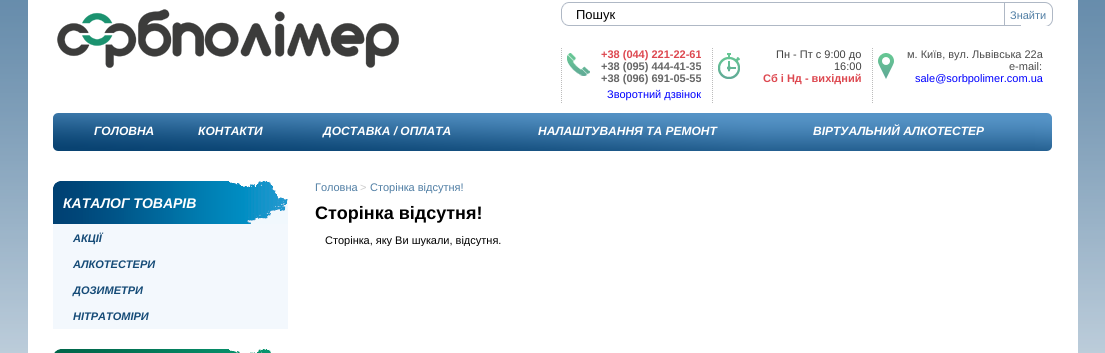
#include <cairo/cairo.h>
#include <math.h>
#include <stddef.h>

typedef struct { double x, y; const char *s; } line_t;
static cairo_t *cr;

static void rgb(unsigned color)
{
	cairo_set_source_rgb(cr, (color >> 16) / 255.0, (color >> 8 & 255) / 255.0, (color & 255) / 255.0);
}

static void image(const char *path, double x, double y, double w, double h)
{
	cairo_surface_t *image = cairo_image_surface_create_from_png(path);
	cairo_save(cr);
	cairo_set_source_surface(cr, image, x, y);
	cairo_rectangle(cr, x, y, w, h);
	cairo_fill(cr);
	cairo_restore(cr);
	cairo_surface_destroy(image);
}

int main(void) {
	cairo_surface_t *surface = cairo_image_surface_create(CAIRO_FORMAT_RGB24, 1105, 353);
	cr = cairo_create(surface);
	cairo_font_options_t *options = cairo_font_options_create();
	cairo_font_options_set_hint_metrics(options, CAIRO_HINT_METRICS_OFF);
	cairo_font_options_set_hint_style(options, CAIRO_HINT_STYLE_NONE);
	cairo_set_font_options(cr, options);
	cairo_set_miter_limit(cr, 4);
	rgb(0xffffff);
	cairo_paint(cr);
	image("img/1.png", 0, 0, 1105, 353);
	rgb(0xffffff);
	cairo_rectangle(cr, 28, 0, 1050, 353);
	cairo_fill(cr);
	image("img/2.png", 57, 9, 342, 59);
	image("img/3.png", 561, 2, 460, 24);
	cairo_save(cr);
	cairo_rectangle(cr, 561, 0, 492, 26);
	cairo_clip(cr);
	cairo_new_path(cr);
	cairo_move_to(cr, 1004.5, 2.5);
	cairo_line_to(cr, 1045, 2.5);
	cairo_curve_to(cr, 1049, 2.5, 1052.5, 6, 1052.5, 10);
	cairo_line_to(cr, 1052.5, 19);
	cairo_curve_to(cr, 1052.5, 23, 1049, 26.5, 1045, 26.5);
	cairo_line_to(cr, 1004.5, 26.5);
	cairo_close_path(cr);
	rgb(0xafb8c5);
	cairo_set_line_width(cr, 1);
	cairo_stroke(cr);
	cairo_restore(cr);
	image("img/4.png", 567, 53, 23, 23);
	cairo_new_path(cr);
	cairo_move_to(cr, 561.5, 48);
	cairo_line_to(cr, 561.5, 103);
	rgb(0xbcbcbc);
	cairo_set_line_width(cr, 1);
	cairo_set_dash(cr, (double[]){1, 1}, 2, 0);
	cairo_stroke(cr);
	image("img/5.png", 718, 53, 22, 26);
	cairo_new_path(cr);
	cairo_move_to(cr, 712.5, 48);
	cairo_line_to(cr, 712.5, 103);
	cairo_stroke(cr);
	image("img/6.png", 878, 53, 16, 26);
	cairo_new_path(cr);
	cairo_move_to(cr, 872.5, 48);
	cairo_line_to(cr, 872.5, 103);
	cairo_stroke(cr);
	image("img/7.png", 53, 113, 999, 38);
	image("img/8.png", 53, 181, 235, 44);
	image("img/9.png", 53, 181, 235, 43);
	rgb(0xf3f8fd);
	cairo_rectangle(cr, 53, 225, 235, 104);
	cairo_fill(cr);
	image("img/10.png", 54, 349, 217, 4);
	cairo_select_font_face(cr, "Liberation Sans", CAIRO_FONT_SLANT_NORMAL, CAIRO_FONT_WEIGHT_NORMAL);
	cairo_set_font_size(cr, 13);
	rgb(0x000000);
	cairo_move_to(cr, 576, 19);
	cairo_show_text(cr, "Пошук");
	cairo_set_font_size(cr, 11);
	rgb(0x507ea4);
	cairo_move_to(cr, 1010, 19);
	cairo_show_text(cr, "Знайти");
	cairo_select_font_face(cr, "Liberation Sans", CAIRO_FONT_SLANT_NORMAL, CAIRO_FONT_WEIGHT_BOLD);
	rgb(0xdd4850);
	cairo_move_to(cr, 601, 58);
	cairo_show_text(cr, "+38 (044) 221-22-61");
	rgb(0x666666);
	cairo_move_to(cr, 601, 70);
	cairo_show_text(cr, "+38 (095) 444-41-35");
	cairo_move_to(cr, 601, 82);
	cairo_show_text(cr, "+38 (096) 691-05-55");
	cairo_select_font_face(cr, "Liberation Sans", CAIRO_FONT_SLANT_NORMAL, CAIRO_FONT_WEIGHT_NORMAL);
	rgb(0x0000ff);
	cairo_move_to(cr, 607, 98);
	cairo_show_text(cr, "Зворотний дзвінок");
	rgb(0x404040);
	cairo_move_to(cr, 776, 58);
	cairo_show_text(cr, "Пн - Пт с 9:00 до");
	cairo_move_to(cr, 834, 70);
	cairo_show_text(cr, "16:00");
	cairo_select_font_face(cr, "Liberation Sans", CAIRO_FONT_SLANT_NORMAL, CAIRO_FONT_WEIGHT_BOLD);
	rgb(0xdd4850);
	cairo_move_to(cr, 763, 82);
	cairo_show_text(cr, "Сб і Нд - вихідний");
	cairo_select_font_face(cr, "Liberation Sans", CAIRO_FONT_SLANT_NORMAL, CAIRO_FONT_WEIGHT_NORMAL);
	rgb(0x4c4c4c);
	cairo_move_to(cr, 907, 58);
	cairo_show_text(cr, "м. Київ, вул. Львівська 22а");
	cairo_move_to(cr, 1009, 70);
	cairo_show_text(cr, "e-mail:");
	rgb(0x0000ff);
	cairo_move_to(cr, 915, 82);
	cairo_show_text(cr, "sale@sorbpolimer.com.ua");
	cairo_select_font_face(cr, "Liberation Sans", CAIRO_FONT_SLANT_ITALIC, CAIRO_FONT_WEIGHT_BOLD);
	cairo_set_font_size(cr, 12);
	rgb(0xffffff);
	{
		static const line_t items[] = {
			{94, 135, "ГОЛОВНА"},
			{198, 135, "КОНТАКТИ"},
			{323, 135, "ДОСТАВКА / ОПЛАТА"},
			{538, 135, "НАЛАШТУВАННЯ ТА РЕМОНТ"},
			{813, 135, "ВІРТУАЛЬНИЙ АЛКОТЕСТЕР"},
		};
		for (size_t i = 0; i < sizeof items / sizeof *items; i++) {
			cairo_move_to(cr, items[i].x, items[i].y);
			cairo_show_text(cr, items[i].s);
		}
	}
	cairo_set_font_size(cr, 14);
	cairo_move_to(cr, 63, 208);
	cairo_show_text(cr, "КАТАЛОГ ТОВАРІВ");
	cairo_set_font_size(cr, 11);
	rgb(0x154b77);
	{
		static const line_t items[] = {
			{73, 242, "АКЦІЇ"},
			{73, 268, "АЛКОТЕСТЕРИ"},
			{73, 294, "ДОЗИМЕТРИ"},
			{73, 320, "НІТРАТОМІРИ"},
		};
		for (size_t i = 0; i < sizeof items / sizeof *items; i++) {
			cairo_move_to(cr, items[i].x, items[i].y);
			cairo_show_text(cr, items[i].s);
		}
	}
	cairo_select_font_face(cr, "Liberation Sans", CAIRO_FONT_SLANT_NORMAL, CAIRO_FONT_WEIGHT_NORMAL);
	rgb(0x507ea4);
	cairo_move_to(cr, 315, 191);
	cairo_show_text(cr, "Головна");
	rgb(0xcccccc);
	cairo_move_to(cr, 360, 191);
	cairo_show_text(cr, ">");
	rgb(0x507ea4);
	cairo_move_to(cr, 370, 191);
	cairo_show_text(cr, "Сторінка відсутня!");
	cairo_select_font_face(cr, "Liberation Sans", CAIRO_FONT_SLANT_NORMAL, CAIRO_FONT_WEIGHT_BOLD);
	cairo_set_font_size(cr, 18);
	rgb(0x000000);
	cairo_move_to(cr, 315, 219);
	cairo_show_text(cr, "Сторінка відсутня!");
	cairo_save(cr);
	cairo_rectangle(cr, 315, 181, 738, 65);
	cairo_clip(cr);
	cairo_select_font_face(cr, "Liberation Sans", CAIRO_FONT_SLANT_NORMAL, CAIRO_FONT_WEIGHT_NORMAL);
	cairo_set_font_size(cr, 11);
	cairo_move_to(cr, 325, 244);
	cairo_show_text(cr, "Сторінка, яку Ви шукали, відсутня.");
	cairo_restore(cr);
	cairo_surface_write_to_png(surface, "page.png");
	cairo_font_options_destroy(options);
	cairo_destroy(cr);
	cairo_surface_destroy(surface);
	return 0;
}
